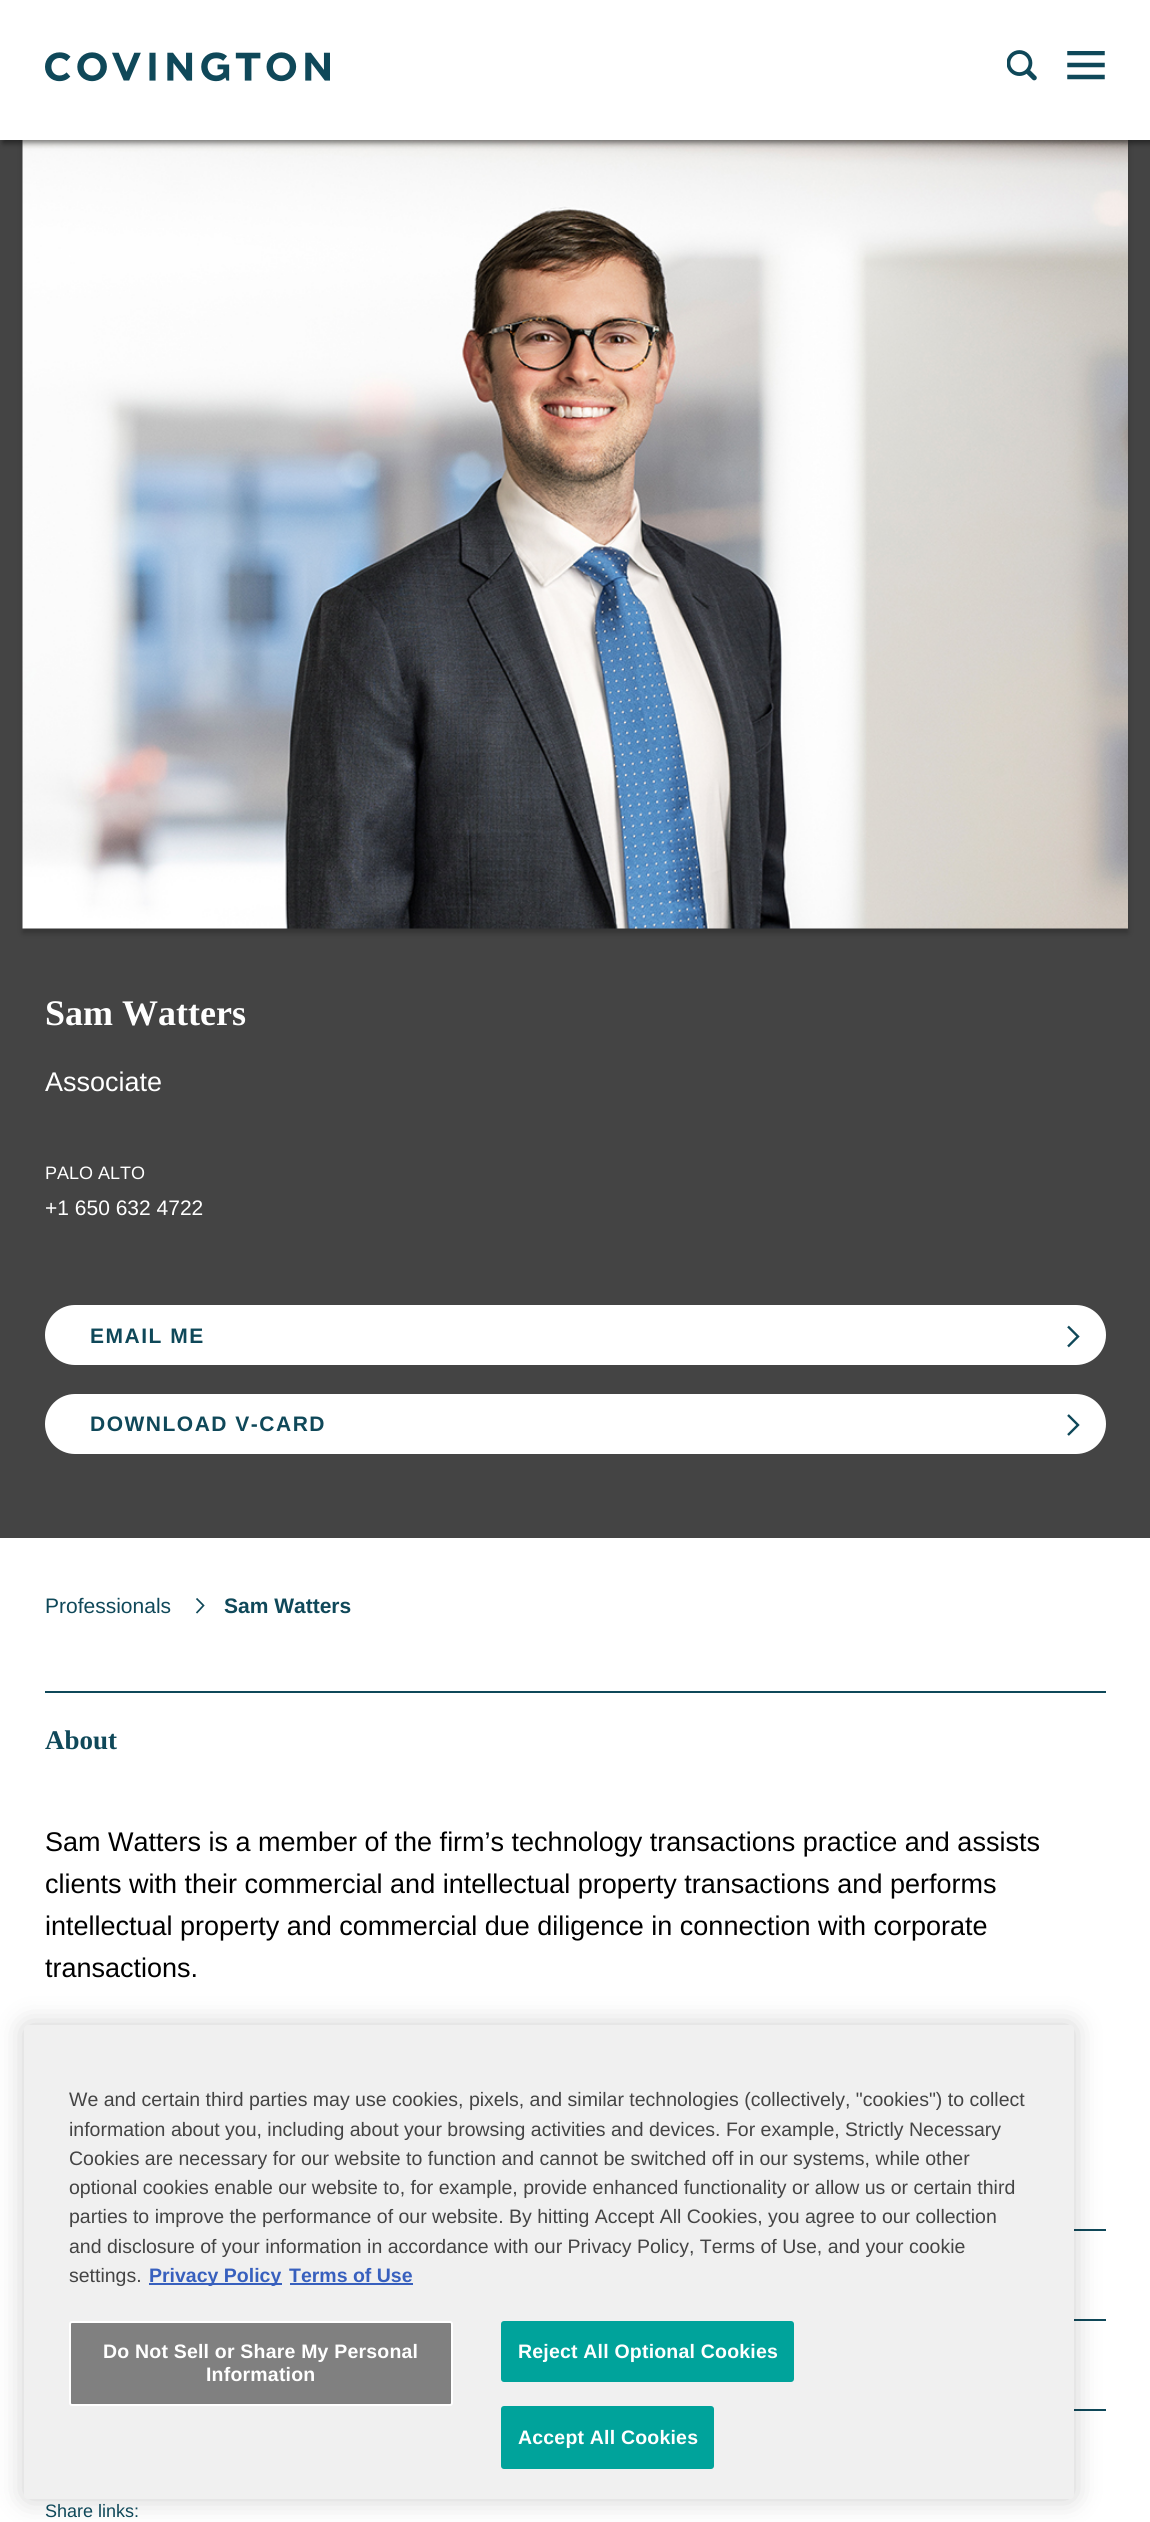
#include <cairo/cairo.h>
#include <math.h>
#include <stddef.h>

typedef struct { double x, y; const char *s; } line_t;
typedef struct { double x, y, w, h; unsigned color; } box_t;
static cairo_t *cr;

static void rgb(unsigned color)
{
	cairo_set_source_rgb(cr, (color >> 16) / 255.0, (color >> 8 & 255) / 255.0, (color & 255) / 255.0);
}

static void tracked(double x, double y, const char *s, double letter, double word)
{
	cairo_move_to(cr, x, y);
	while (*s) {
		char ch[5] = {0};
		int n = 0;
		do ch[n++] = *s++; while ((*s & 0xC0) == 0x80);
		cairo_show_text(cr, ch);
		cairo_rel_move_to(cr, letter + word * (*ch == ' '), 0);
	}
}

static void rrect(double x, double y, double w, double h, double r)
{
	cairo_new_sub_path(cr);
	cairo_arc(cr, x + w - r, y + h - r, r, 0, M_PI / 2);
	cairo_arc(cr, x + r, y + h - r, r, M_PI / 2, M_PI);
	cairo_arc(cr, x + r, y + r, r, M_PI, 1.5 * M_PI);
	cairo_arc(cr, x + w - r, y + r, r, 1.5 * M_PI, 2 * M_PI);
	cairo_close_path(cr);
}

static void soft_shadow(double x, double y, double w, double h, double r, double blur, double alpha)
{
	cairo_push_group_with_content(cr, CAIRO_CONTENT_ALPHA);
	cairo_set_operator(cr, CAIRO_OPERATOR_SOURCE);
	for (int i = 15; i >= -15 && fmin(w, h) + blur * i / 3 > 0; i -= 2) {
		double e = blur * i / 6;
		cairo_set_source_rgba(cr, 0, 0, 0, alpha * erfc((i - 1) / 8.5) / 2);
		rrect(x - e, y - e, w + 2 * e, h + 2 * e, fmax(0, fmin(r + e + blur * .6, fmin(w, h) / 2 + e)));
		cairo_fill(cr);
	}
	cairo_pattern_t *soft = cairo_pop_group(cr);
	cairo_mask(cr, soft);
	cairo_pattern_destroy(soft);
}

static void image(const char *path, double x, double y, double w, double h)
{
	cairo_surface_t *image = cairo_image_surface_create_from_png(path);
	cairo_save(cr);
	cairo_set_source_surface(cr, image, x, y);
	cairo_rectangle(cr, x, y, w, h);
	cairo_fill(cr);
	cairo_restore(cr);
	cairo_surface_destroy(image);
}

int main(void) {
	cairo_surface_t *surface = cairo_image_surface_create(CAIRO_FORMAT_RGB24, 1150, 2522);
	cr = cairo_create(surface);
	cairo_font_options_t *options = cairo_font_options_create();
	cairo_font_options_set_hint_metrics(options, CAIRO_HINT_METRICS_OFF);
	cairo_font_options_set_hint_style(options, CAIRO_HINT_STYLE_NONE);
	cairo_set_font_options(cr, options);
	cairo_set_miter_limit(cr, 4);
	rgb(0xffffff);
	cairo_paint(cr);
	rgb(0x444444);
	cairo_rectangle(cr, 0, 140, 1150, 1398);
	cairo_fill(cr);
	rgb(0x000000);
	soft_shadow(23, 144, 1105, 789, 0, 3, 0.25);
	image("img/3.png", 22, 140, 1106, 789);
	soft_shadow(3, 3, 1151, 140, 0, 3, 0.5);
	rgb(0xffffff);
	cairo_rectangle(cr, 0, 0, 1150, 140);
	cairo_fill(cr);
	image("img/1.png", 45, 52, 285, 30);
	image("img/2.png", 1007, 50, 30, 31);
	cairo_save(cr);
	cairo_rectangle(cr, 1067, 51, 39, 29);
	cairo_clip(cr);
	cairo_new_path(cr);
	cairo_move_to(cr, 1069.5, 53);
	cairo_line_to(cr, 1102.5, 53);
	rgb(0x0f4859);
	cairo_set_line_width(cr, 4.5);
	cairo_set_line_cap(cr, CAIRO_LINE_CAP_SQUARE);
	cairo_stroke(cr);
	cairo_restore(cr);
	cairo_new_path(cr);
	cairo_move_to(cr, 1069.5, 65);
	cairo_line_to(cr, 1102.5, 65);
	cairo_move_to(cr, 1069.5, 77);
	cairo_line_to(cr, 1102.5, 77);
	rgb(0x0f4859);
	cairo_set_line_width(cr, 4.5);
	cairo_set_line_cap(cr, CAIRO_LINE_CAP_SQUARE);
	cairo_stroke(cr);
	rgb(0xffffff);
	rrect(46.5, 1306.5, 1058, 57, 28.5);
	cairo_fill_preserve(cr);
	cairo_set_line_width(cr, 3);
	cairo_set_line_cap(cr, CAIRO_LINE_CAP_BUTT);
	cairo_stroke(cr);
	cairo_new_path(cr);
	cairo_move_to(cr, 1068, 1326.5);
	cairo_line_to(cr, 1078, 1336.5);
	cairo_line_to(cr, 1068, 1346.5);
	rgb(0x0f4859);
	cairo_set_line_width(cr, 2.4);
	cairo_stroke(cr);
	rgb(0xffffff);
	rrect(46.5, 1395.5, 1058, 57, 28.5);
	cairo_fill_preserve(cr);
	cairo_set_line_width(cr, 3);
	cairo_stroke(cr);
	cairo_new_path(cr);
	cairo_move_to(cr, 1068, 1415);
	cairo_line_to(cr, 1078, 1425);
	cairo_line_to(cr, 1068, 1435);
	rgb(0x0f4859);
	cairo_set_line_width(cr, 2.4);
	cairo_stroke(cr);
	cairo_new_path(cr);
	cairo_move_to(cr, 196.5, 1598.5);
	cairo_line_to(cr, 203.5, 1605.5);
	cairo_line_to(cr, 196.5, 1613);
	cairo_set_line_width(cr, 1.7);
	cairo_stroke(cr);
	{
		static const box_t items[] = {
			{45, 1691, 1061, 2, 0x0f4859},
			{1074, 2229, 32, 2, 0x0f4859},
			{1074, 2319, 32, 2, 0x0f4859},
			{1074, 2409, 32, 2, 0x0f4859},
		};
		for (size_t i = 0; i < sizeof items / sizeof *items; i++) {
			rgb(items[i].color);
			cairo_rectangle(cr, items[i].x, items[i].y, items[i].w, items[i].h);
			cairo_fill(cr);
		}
	}
	rgb(0x000000);
	soft_shadow(24, 2025, 1050, 474, 4, 13.5, 0.2);
	rgb(0xf0f0f0);
	rrect(24, 2025, 1050, 474, 4);
	cairo_fill(cr);
	rgb(0x3860be);
	cairo_rectangle(cr, 149, 2283, 133, 2);
	cairo_fill(cr);
	cairo_rectangle(cr, 290, 2283, 123, 2);
	cairo_fill(cr);
	rgb(0x808080);
	rrect(70, 2322, 382, 83, 2);
	cairo_fill_preserve(cr);
	rgb(0xffffff);
	cairo_set_line_width(cr, 2);
	cairo_stroke(cr);
	rgb(0x00a39b);
	rrect(502, 2322, 291, 59, 2);
	cairo_fill_preserve(cr);
	cairo_stroke(cr);
	rrect(502, 2407, 211, 61, 2);
	cairo_fill_preserve(cr);
	cairo_stroke(cr);
	cairo_select_font_face(cr, "Liberation Serif", CAIRO_FONT_SLANT_NORMAL, CAIRO_FONT_WEIGHT_BOLD);
	cairo_set_font_size(cr, 36);
	rgb(0xffffff);
	cairo_move_to(cr, 45, 1025);
	cairo_show_text(cr, "Sam Watters");
	cairo_select_font_face(cr, "Liberation Sans", CAIRO_FONT_SLANT_NORMAL, CAIRO_FONT_WEIGHT_NORMAL);
	cairo_set_font_size(cr, 27);
	cairo_move_to(cr, 45, 1091);
	cairo_show_text(cr, "Associate");
	cairo_set_font_size(cr, 18);
	cairo_move_to(cr, 45, 1179);
	cairo_show_text(cr, "PALO ALTO");
	cairo_set_font_size(cr, 21);
	cairo_move_to(cr, 45, 1215);
	cairo_show_text(cr, "+1 650 632 4722");
	cairo_select_font_face(cr, "Liberation Sans", CAIRO_FONT_SLANT_NORMAL, CAIRO_FONT_WEIGHT_BOLD);
	rgb(0x0f4859);
	tracked(90, 1343, "EMAIL ME", 1.5, 0);
	tracked(90, 1431, "DOWNLOAD V-CARD", 1.5, 0);
	cairo_select_font_face(cr, "Liberation Sans", CAIRO_FONT_SLANT_NORMAL, CAIRO_FONT_WEIGHT_NORMAL);
	cairo_move_to(cr, 45, 1613);
	cairo_show_text(cr, "Professionals");
	cairo_select_font_face(cr, "Liberation Sans", CAIRO_FONT_SLANT_NORMAL, CAIRO_FONT_WEIGHT_BOLD);
	cairo_move_to(cr, 224, 1613);
	cairo_show_text(cr, "Sam Watters");
	cairo_select_font_face(cr, "Liberation Serif", CAIRO_FONT_SLANT_NORMAL, CAIRO_FONT_WEIGHT_BOLD);
	cairo_set_font_size(cr, 27);
	cairo_move_to(cr, 45, 1749);
	cairo_show_text(cr, "About");
	cairo_select_font_face(cr, "Liberation Sans", CAIRO_FONT_SLANT_NORMAL, CAIRO_FONT_WEIGHT_NORMAL);
	rgb(0x000000);
	{
		static const line_t items[] = {
			{45, 1851, "Sam Watters is a member of the firm’s technology transactions practice and assists"},
			{45, 1893, "clients with their commercial and intellectual property transactions and performs"},
			{45, 1935, "intellectual property and commercial due diligence in connection with corporate"},
			{45, 1977, "transactions."},
		};
		for (size_t i = 0; i < sizeof items / sizeof *items; i++) {
			cairo_move_to(cr, items[i].x, items[i].y);
			cairo_show_text(cr, items[i].s);
		}
	}
	cairo_set_font_size(cr, 18);
	rgb(0x0f4859);
	cairo_move_to(cr, 45, 2517);
	cairo_show_text(cr, "Share links:");
	cairo_set_font_size(cr, 19.5);
	rgb(0x444444);
	{
		static const line_t items[] = {
			{69, 2106, "We and certain third parties may use cookies, pixels, and similar technologies (collectively, \"cookies\") to collect"},
			{69, 2136, "information about you, including about your browsing activities and devices. For example, Strictly Necessary"},
			{69, 2165, "Cookies are necessary for our website to function and cannot be switched off in our systems, while other"},
			{69, 2194, "optional cookies enable our website to, for example, provide enhanced functionality or allow us or certain third"},
			{69, 2223, "parties to improve the performance of our website. By hitting Accept All Cookies, you agree to our collection"},
			{69, 2253, "and disclosure of your information in accordance with our Privacy Policy, Terms of Use, and your cookie"},
			{69, 2282, "settings."},
		};
		for (size_t i = 0; i < sizeof items / sizeof *items; i++) {
			cairo_move_to(cr, items[i].x, items[i].y);
			cairo_show_text(cr, items[i].s);
		}
	}
	cairo_select_font_face(cr, "Liberation Sans", CAIRO_FONT_SLANT_NORMAL, CAIRO_FONT_WEIGHT_BOLD);
	rgb(0x3860be);
	cairo_move_to(cr, 149, 2282);
	cairo_show_text(cr, "Privacy Policy");
	cairo_move_to(cr, 289, 2282);
	cairo_show_text(cr, "Terms of Use");
	rgb(0xffffff);
	{
		static const line_t items[] = {
			{103, 2358, "Do Not Sell or Share My Personal"},
			{206, 2381, "Information"},
			{518, 2358, "Reject All Optional Cookies"},
			{518, 2444, "Accept All Cookies"},
		};
		for (size_t i = 0; i < sizeof items / sizeof *items; i++) {
			tracked(items[i].x, items[i].y, items[i].s, 0.2, 0);
		}
	}
	cairo_surface_write_to_png(surface, "page.png");
	cairo_font_options_destroy(options);
	cairo_destroy(cr);
	cairo_surface_destroy(surface);
	return 0;
}
